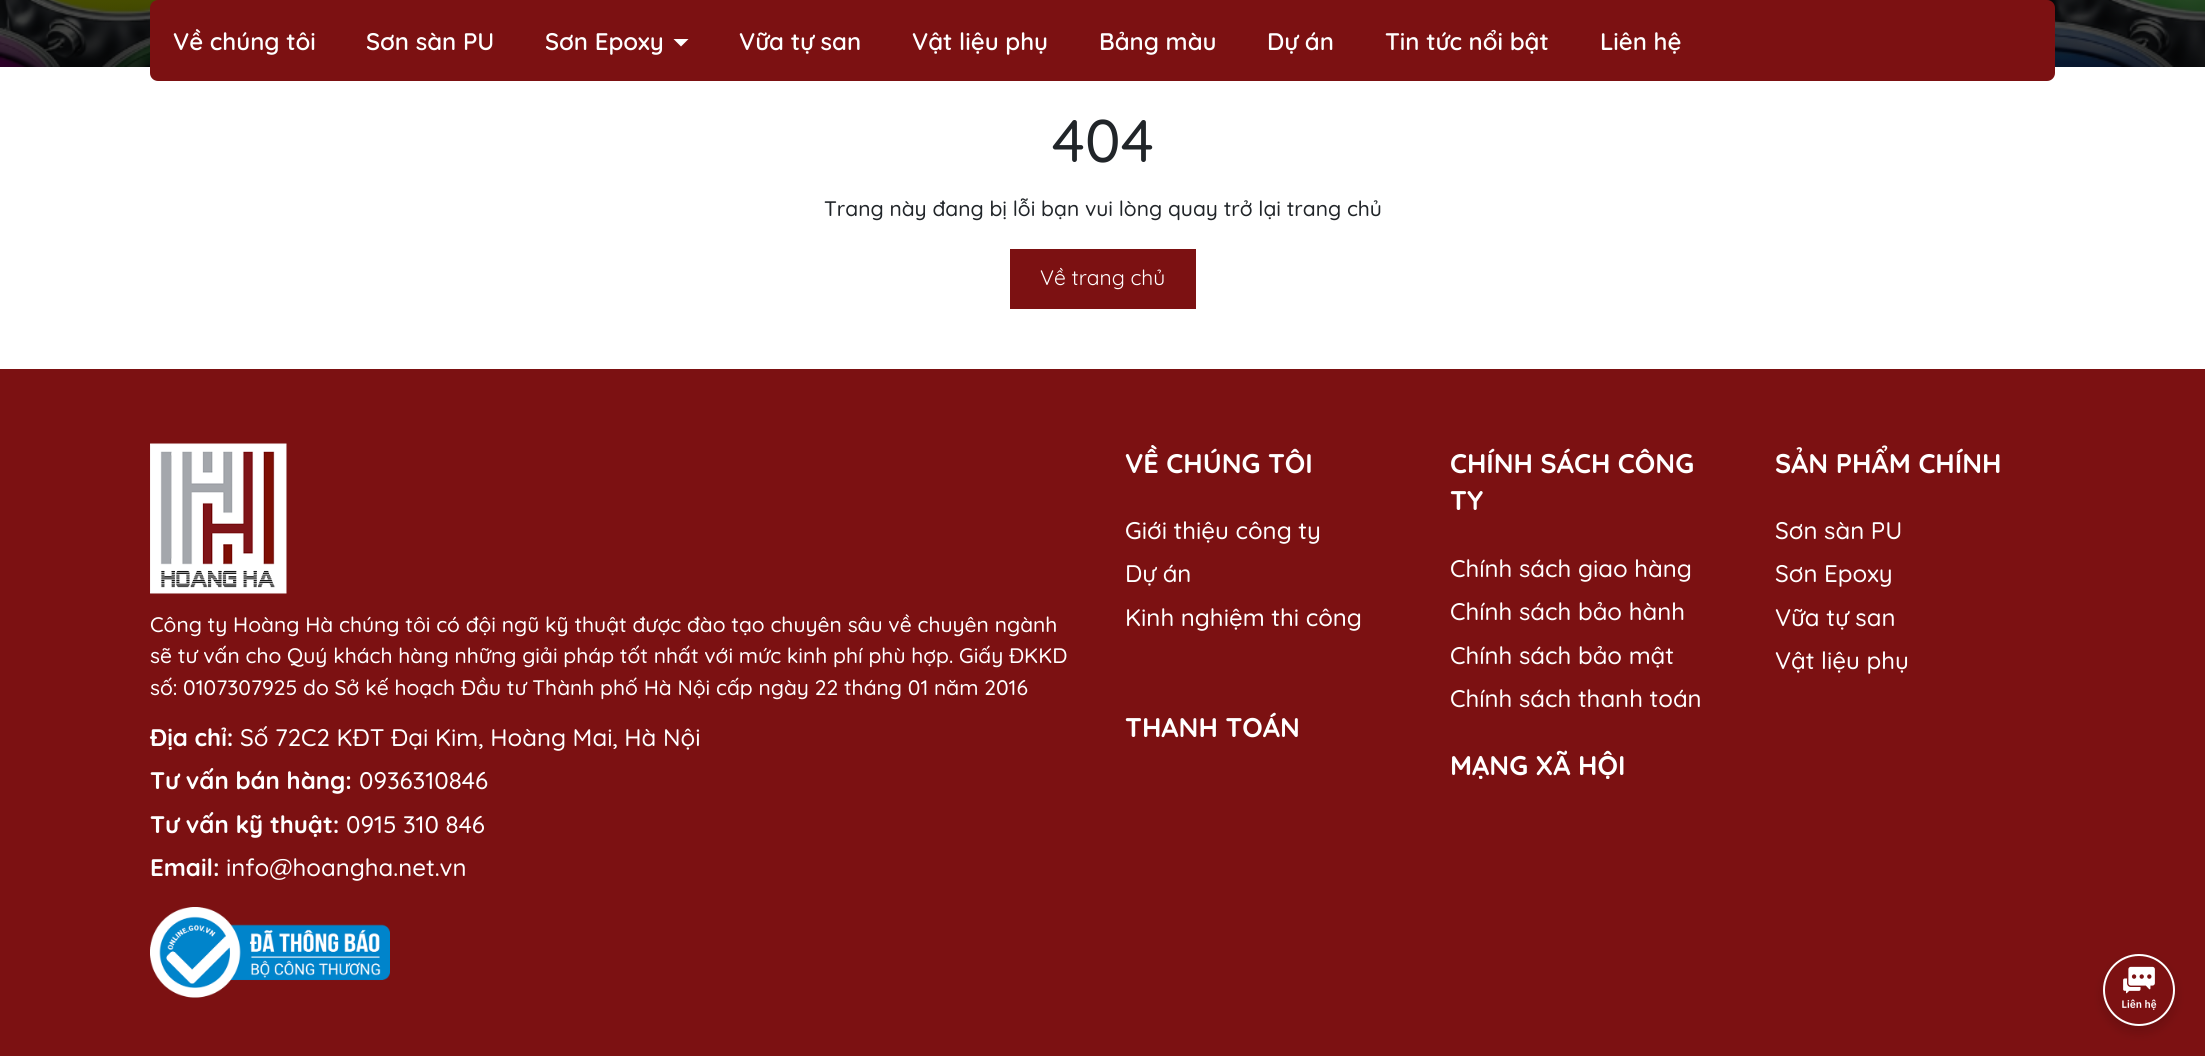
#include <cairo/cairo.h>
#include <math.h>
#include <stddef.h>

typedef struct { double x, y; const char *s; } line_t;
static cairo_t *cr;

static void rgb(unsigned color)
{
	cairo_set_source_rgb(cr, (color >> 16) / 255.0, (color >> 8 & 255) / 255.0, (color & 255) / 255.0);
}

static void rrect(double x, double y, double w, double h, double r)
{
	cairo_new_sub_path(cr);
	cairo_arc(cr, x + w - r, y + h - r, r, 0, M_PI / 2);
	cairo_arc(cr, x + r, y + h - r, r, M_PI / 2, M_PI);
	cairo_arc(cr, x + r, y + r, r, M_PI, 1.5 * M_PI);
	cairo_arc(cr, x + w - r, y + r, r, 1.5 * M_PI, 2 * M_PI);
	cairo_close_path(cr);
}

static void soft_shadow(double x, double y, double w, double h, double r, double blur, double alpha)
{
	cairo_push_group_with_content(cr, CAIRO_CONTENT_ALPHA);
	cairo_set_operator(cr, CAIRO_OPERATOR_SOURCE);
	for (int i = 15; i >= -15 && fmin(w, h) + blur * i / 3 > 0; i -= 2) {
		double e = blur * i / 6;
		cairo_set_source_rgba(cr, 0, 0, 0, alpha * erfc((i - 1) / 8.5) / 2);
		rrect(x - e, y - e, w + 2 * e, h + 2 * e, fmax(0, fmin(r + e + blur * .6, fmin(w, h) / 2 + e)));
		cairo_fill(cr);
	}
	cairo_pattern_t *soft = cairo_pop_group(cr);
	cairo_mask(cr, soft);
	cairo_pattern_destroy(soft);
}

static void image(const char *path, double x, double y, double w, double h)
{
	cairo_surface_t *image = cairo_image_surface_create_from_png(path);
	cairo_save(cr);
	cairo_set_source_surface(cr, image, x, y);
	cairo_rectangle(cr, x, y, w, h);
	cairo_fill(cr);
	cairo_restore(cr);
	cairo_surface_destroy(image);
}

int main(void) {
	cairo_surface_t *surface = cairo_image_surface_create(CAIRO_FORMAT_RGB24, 2205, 1056);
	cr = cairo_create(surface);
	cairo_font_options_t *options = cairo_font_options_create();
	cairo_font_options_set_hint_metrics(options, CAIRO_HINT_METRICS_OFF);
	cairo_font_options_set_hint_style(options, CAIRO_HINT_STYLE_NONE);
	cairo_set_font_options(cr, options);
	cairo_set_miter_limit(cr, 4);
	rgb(0xffffff);
	cairo_paint(cr);
	image("img/1.png", 0, 0, 2205, 67);
	rgb(0x7c1112);
	rrect(150, 0, 1905, 81, 8);
	cairo_fill(cr);
	rgb(0xffffff);
	cairo_new_path(cr);
	cairo_move_to(cr, 673.5, 39);
	cairo_line_to(cr, 688.5, 39);
	cairo_line_to(cr, 681, 46.5);
	cairo_close_path(cr);
	cairo_fill(cr);
	rgb(0x7c1112);
	cairo_rectangle(cr, 1010, 249, 186, 60);
	cairo_fill(cr);
	cairo_rectangle(cr, 0, 369, 2205, 687);
	cairo_fill(cr);
	image("img/2.png", 150, 443, 137, 151);
	image("img/3.png", 150, 907, 240, 91);
	rgb(0x000000);
	soft_shadow(2103, 960, 72, 72, 36, 6, 0.15);
	rgb(0x7c1112);
	cairo_arc(cr, 2139, 990, 35, 0, 2 * M_PI);
	cairo_fill_preserve(cr);
	rgb(0xffffff);
	cairo_stroke(cr);
	image("img/4.png", 2122, 966, 35, 44);
	cairo_select_font_face(cr, "Quicksand SemiBold", CAIRO_FONT_SLANT_NORMAL, CAIRO_FONT_WEIGHT_NORMAL);
	cairo_set_font_size(cr, 24);
	{
		static const line_t items[] = {
			{173, 50, "Về chúng tôi"},
			{366, 50, "Sơn sàn PU"},
			{545, 50, "Sơn Epoxy"},
			{739, 50, "Vữa tự san"},
			{912, 50, "Vật liệu phụ"},
			{1099, 50, "Bảng màu"},
			{1267, 50, "Dự án"},
			{1385, 50, "Tin tức nổi bật"},
			{1600, 50, "Liên hệ"},
		};
		for (size_t i = 0; i < sizeof items / sizeof *items; i++) {
			cairo_move_to(cr, items[i].x, items[i].y);
			cairo_show_text(cr, items[i].s);
		}
	}
	cairo_select_font_face(cr, "Quicksand Medium", CAIRO_FONT_SLANT_NORMAL, CAIRO_FONT_WEIGHT_NORMAL);
	cairo_set_font_size(cr, 60);
	rgb(0x212529);
	cairo_move_to(cr, 1052, 162);
	cairo_show_text(cr, "404");
	cairo_set_font_size(cr, 21);
	cairo_move_to(cr, 824, 216);
	cairo_show_text(cr, "Trang này đang bị lỗi bạn vui lòng quay trở lại trang chủ");
	cairo_select_font_face(cr, "Quicksand", CAIRO_FONT_SLANT_NORMAL, CAIRO_FONT_WEIGHT_NORMAL);
	rgb(0xffffff);
	cairo_move_to(cr, 1040, 285);
	cairo_show_text(cr, "Về trang chủ");
	cairo_select_font_face(cr, "Quicksand Medium", CAIRO_FONT_SLANT_NORMAL, CAIRO_FONT_WEIGHT_NORMAL);
	{
		static const line_t items[] = {
			{150, 632, "Công ty Hoàng Hà chúng tôi có đội ngũ kỹ thuật được đào tạo chuyên sâu về chuyên ngành"},
			{150, 663, "sẽ tư vấn cho Quý khách hàng những giải pháp tốt nhất với mức kinh phí phù hợp. Giấy ĐKKD"},
			{150, 695, "số: 0107307925 do Sở kế hoạch Đầu tư Thành phố Hà Nội cấp ngày 22 tháng 01 năm 2016"},
		};
		for (size_t i = 0; i < sizeof items / sizeof *items; i++) {
			cairo_move_to(cr, items[i].x, items[i].y);
			cairo_show_text(cr, items[i].s);
		}
	}
	cairo_select_font_face(cr, "Quicksand", CAIRO_FONT_SLANT_NORMAL, CAIRO_FONT_WEIGHT_BOLD);
	cairo_set_font_size(cr, 24);
	cairo_move_to(cr, 150, 746);
	cairo_show_text(cr, "Địa chỉ:");
	cairo_select_font_face(cr, "Quicksand Medium", CAIRO_FONT_SLANT_NORMAL, CAIRO_FONT_WEIGHT_NORMAL);
	cairo_move_to(cr, 240, 746);
	cairo_show_text(cr, "Số 72C2 KĐT Đại Kim, Hoàng Mai, Hà Nội");
	cairo_select_font_face(cr, "Quicksand", CAIRO_FONT_SLANT_NORMAL, CAIRO_FONT_WEIGHT_BOLD);
	cairo_move_to(cr, 150, 789);
	cairo_show_text(cr, "Tư vấn bán hàng:");
	cairo_select_font_face(cr, "Quicksand Medium", CAIRO_FONT_SLANT_NORMAL, CAIRO_FONT_WEIGHT_NORMAL);
	cairo_move_to(cr, 359, 789);
	cairo_show_text(cr, "0936310846");
	cairo_select_font_face(cr, "Quicksand", CAIRO_FONT_SLANT_NORMAL, CAIRO_FONT_WEIGHT_BOLD);
	cairo_move_to(cr, 150, 833);
	cairo_show_text(cr, "Tư vấn kỹ thuật:");
	cairo_select_font_face(cr, "Quicksand Medium", CAIRO_FONT_SLANT_NORMAL, CAIRO_FONT_WEIGHT_NORMAL);
	cairo_move_to(cr, 346, 833);
	cairo_show_text(cr, "0915 310 846");
	cairo_select_font_face(cr, "Quicksand", CAIRO_FONT_SLANT_NORMAL, CAIRO_FONT_WEIGHT_BOLD);
	cairo_move_to(cr, 150, 876);
	cairo_show_text(cr, "Email:");
	cairo_select_font_face(cr, "Quicksand Medium", CAIRO_FONT_SLANT_NORMAL, CAIRO_FONT_WEIGHT_NORMAL);
	cairo_move_to(cr, 226, 876);
	cairo_show_text(cr, "info@hoangha.net.vn");
	cairo_select_font_face(cr, "Quicksand", CAIRO_FONT_SLANT_NORMAL, CAIRO_FONT_WEIGHT_BOLD);
	cairo_set_font_size(cr, 27);
	cairo_move_to(cr, 1125, 473);
	cairo_show_text(cr, "VỀ CHÚNG TÔI");
	cairo_select_font_face(cr, "Quicksand Medium", CAIRO_FONT_SLANT_NORMAL, CAIRO_FONT_WEIGHT_NORMAL);
	cairo_set_font_size(cr, 24);
	{
		static const line_t items[] = {
			{1125, 539, "Giới thiệu công ty"},
			{1125, 582, "Dự án"},
			{1125, 626, "Kinh nghiệm thi công"},
		};
		for (size_t i = 0; i < sizeof items / sizeof *items; i++) {
			cairo_move_to(cr, items[i].x, items[i].y);
			cairo_show_text(cr, items[i].s);
		}
	}
	cairo_select_font_face(cr, "Quicksand", CAIRO_FONT_SLANT_NORMAL, CAIRO_FONT_WEIGHT_BOLD);
	cairo_set_font_size(cr, 27);
	{
		static const line_t items[] = {
			{1125, 737, "THANH TOÁN"},
			{1450, 473, "CHÍNH SÁCH CÔNG"},
			{1450, 510, "TY"},
		};
		for (size_t i = 0; i < sizeof items / sizeof *items; i++) {
			cairo_move_to(cr, items[i].x, items[i].y);
			cairo_show_text(cr, items[i].s);
		}
	}
	cairo_select_font_face(cr, "Quicksand Medium", CAIRO_FONT_SLANT_NORMAL, CAIRO_FONT_WEIGHT_NORMAL);
	cairo_set_font_size(cr, 24);
	{
		static const line_t items[] = {
			{1450, 577, "Chính sách giao hàng"},
			{1450, 620, "Chính sách bảo hành"},
			{1450, 664, "Chính sách bảo mật"},
			{1450, 707, "Chính sách thanh toán"},
		};
		for (size_t i = 0; i < sizeof items / sizeof *items; i++) {
			cairo_move_to(cr, items[i].x, items[i].y);
			cairo_show_text(cr, items[i].s);
		}
	}
	cairo_select_font_face(cr, "Quicksand", CAIRO_FONT_SLANT_NORMAL, CAIRO_FONT_WEIGHT_BOLD);
	cairo_set_font_size(cr, 27);
	cairo_move_to(cr, 1450, 775);
	cairo_show_text(cr, "MẠNG XÃ HỘI");
	cairo_move_to(cr, 1775, 473);
	cairo_show_text(cr, "SẢN PHẨM CHÍNH");
	cairo_select_font_face(cr, "Quicksand Medium", CAIRO_FONT_SLANT_NORMAL, CAIRO_FONT_WEIGHT_NORMAL);
	cairo_set_font_size(cr, 24);
	{
		static const line_t items[] = {
			{1775, 539, "Sơn sàn PU"},
			{1775, 582, "Sơn Epoxy"},
			{1775, 626, "Vữa tự san"},
			{1775, 669, "Vật liệu phụ"},
		};
		for (size_t i = 0; i < sizeof items / sizeof *items; i++) {
			cairo_move_to(cr, items[i].x, items[i].y);
			cairo_show_text(cr, items[i].s);
		}
	}
	cairo_surface_write_to_png(surface, "page.png");
	cairo_font_options_destroy(options);
	cairo_destroy(cr);
	cairo_surface_destroy(surface);
	return 0;
}
